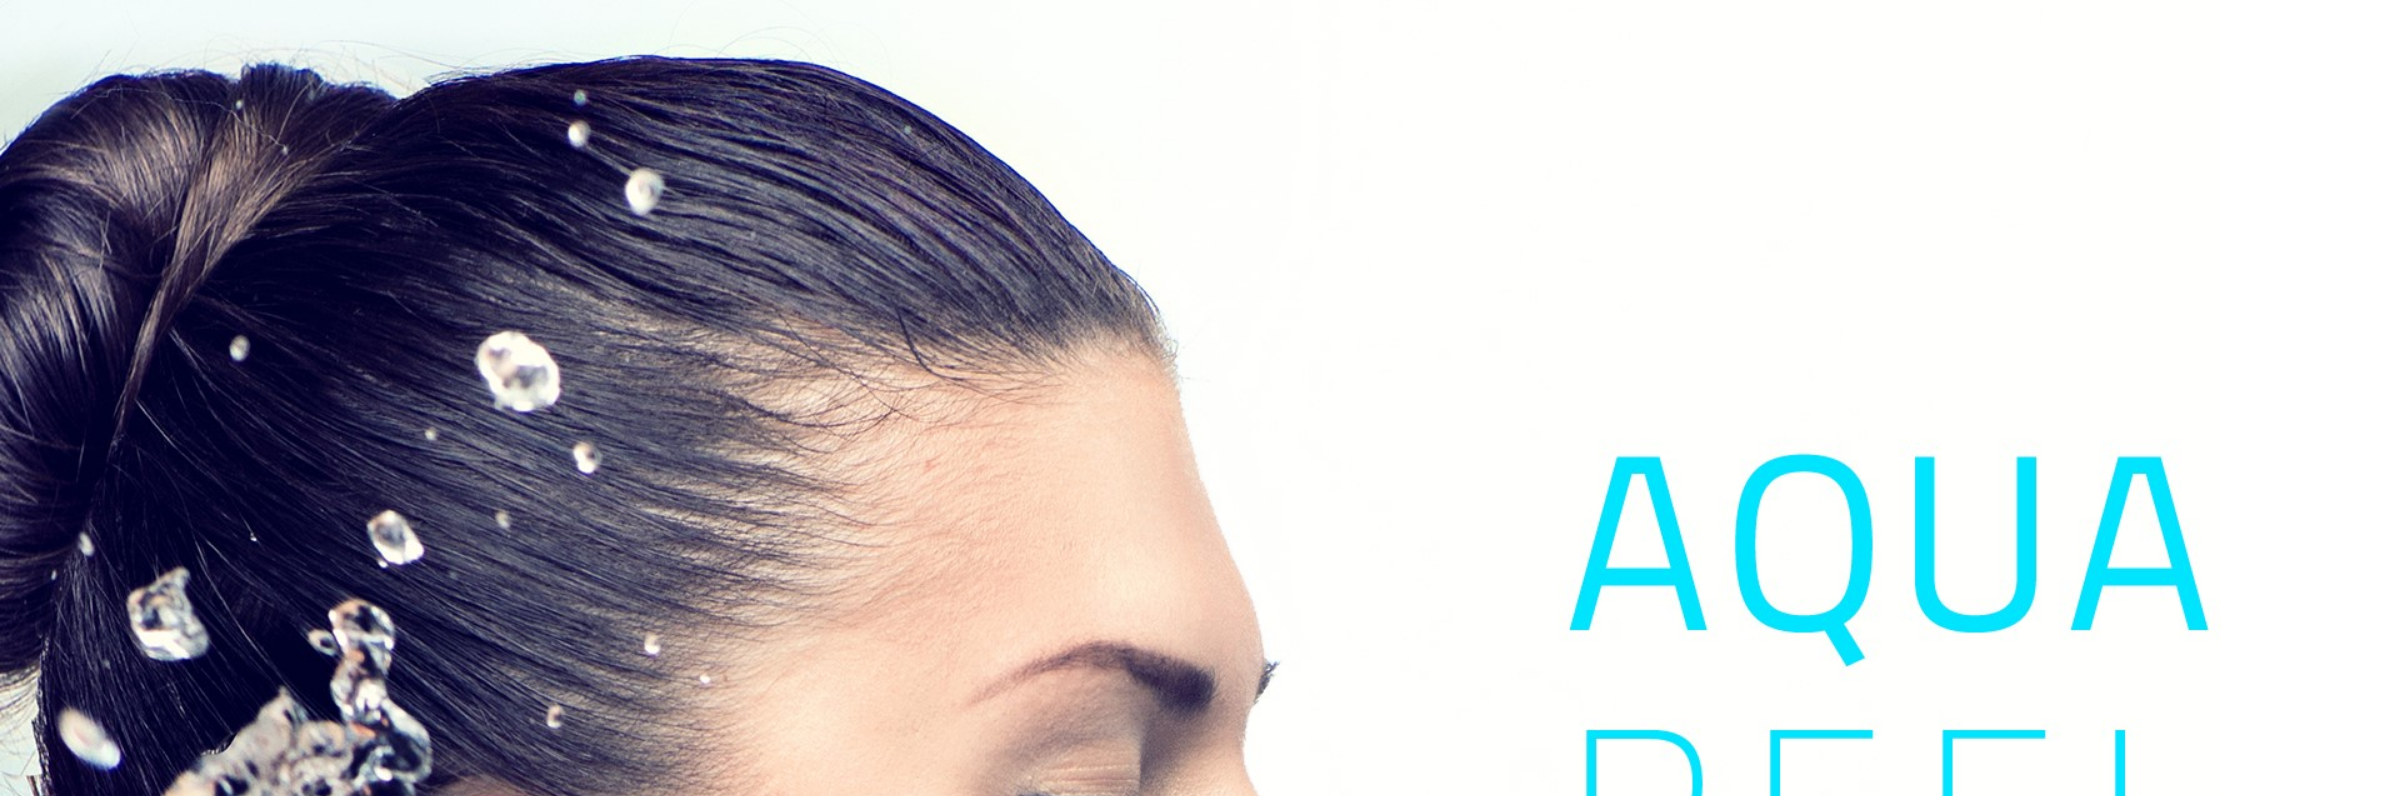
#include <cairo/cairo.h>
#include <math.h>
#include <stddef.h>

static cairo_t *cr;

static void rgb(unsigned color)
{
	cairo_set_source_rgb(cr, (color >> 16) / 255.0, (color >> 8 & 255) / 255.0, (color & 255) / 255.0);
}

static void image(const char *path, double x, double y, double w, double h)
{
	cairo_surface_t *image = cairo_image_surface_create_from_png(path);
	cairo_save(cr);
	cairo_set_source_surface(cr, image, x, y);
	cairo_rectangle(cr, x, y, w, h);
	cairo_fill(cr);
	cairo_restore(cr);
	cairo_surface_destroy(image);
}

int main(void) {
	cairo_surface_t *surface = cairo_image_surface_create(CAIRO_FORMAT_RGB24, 2393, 796);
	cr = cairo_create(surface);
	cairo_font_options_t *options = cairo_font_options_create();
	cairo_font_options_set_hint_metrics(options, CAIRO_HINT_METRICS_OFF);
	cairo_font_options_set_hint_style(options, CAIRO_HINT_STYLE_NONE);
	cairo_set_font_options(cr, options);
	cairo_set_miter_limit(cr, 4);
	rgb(0xffffff);
	cairo_paint(cr);
	image("img/1.png", 0, 0, 2221, 796);
	cairo_surface_write_to_png(surface, "page.png");
	cairo_font_options_destroy(options);
	cairo_destroy(cr);
	cairo_surface_destroy(surface);
	return 0;
}
